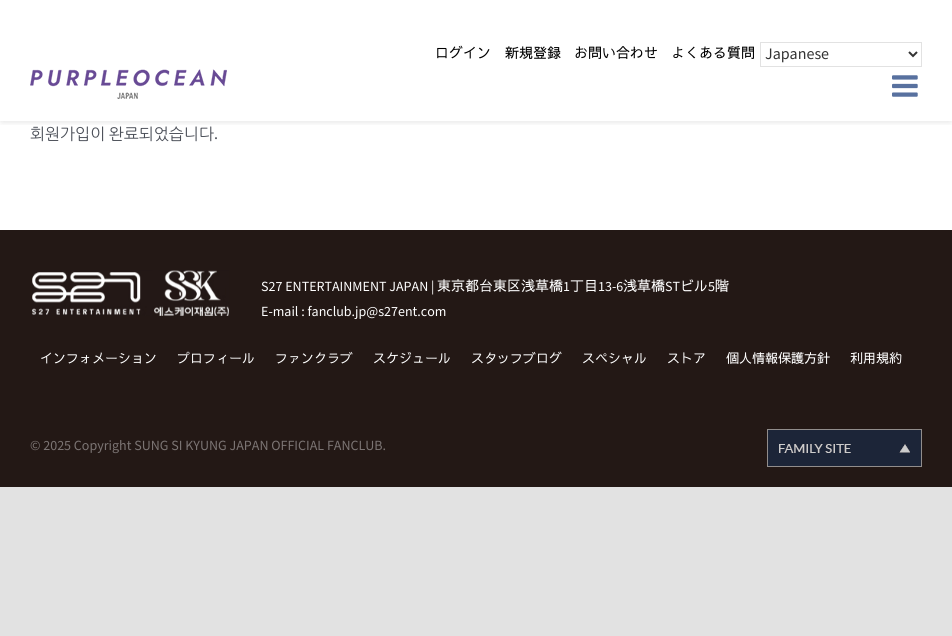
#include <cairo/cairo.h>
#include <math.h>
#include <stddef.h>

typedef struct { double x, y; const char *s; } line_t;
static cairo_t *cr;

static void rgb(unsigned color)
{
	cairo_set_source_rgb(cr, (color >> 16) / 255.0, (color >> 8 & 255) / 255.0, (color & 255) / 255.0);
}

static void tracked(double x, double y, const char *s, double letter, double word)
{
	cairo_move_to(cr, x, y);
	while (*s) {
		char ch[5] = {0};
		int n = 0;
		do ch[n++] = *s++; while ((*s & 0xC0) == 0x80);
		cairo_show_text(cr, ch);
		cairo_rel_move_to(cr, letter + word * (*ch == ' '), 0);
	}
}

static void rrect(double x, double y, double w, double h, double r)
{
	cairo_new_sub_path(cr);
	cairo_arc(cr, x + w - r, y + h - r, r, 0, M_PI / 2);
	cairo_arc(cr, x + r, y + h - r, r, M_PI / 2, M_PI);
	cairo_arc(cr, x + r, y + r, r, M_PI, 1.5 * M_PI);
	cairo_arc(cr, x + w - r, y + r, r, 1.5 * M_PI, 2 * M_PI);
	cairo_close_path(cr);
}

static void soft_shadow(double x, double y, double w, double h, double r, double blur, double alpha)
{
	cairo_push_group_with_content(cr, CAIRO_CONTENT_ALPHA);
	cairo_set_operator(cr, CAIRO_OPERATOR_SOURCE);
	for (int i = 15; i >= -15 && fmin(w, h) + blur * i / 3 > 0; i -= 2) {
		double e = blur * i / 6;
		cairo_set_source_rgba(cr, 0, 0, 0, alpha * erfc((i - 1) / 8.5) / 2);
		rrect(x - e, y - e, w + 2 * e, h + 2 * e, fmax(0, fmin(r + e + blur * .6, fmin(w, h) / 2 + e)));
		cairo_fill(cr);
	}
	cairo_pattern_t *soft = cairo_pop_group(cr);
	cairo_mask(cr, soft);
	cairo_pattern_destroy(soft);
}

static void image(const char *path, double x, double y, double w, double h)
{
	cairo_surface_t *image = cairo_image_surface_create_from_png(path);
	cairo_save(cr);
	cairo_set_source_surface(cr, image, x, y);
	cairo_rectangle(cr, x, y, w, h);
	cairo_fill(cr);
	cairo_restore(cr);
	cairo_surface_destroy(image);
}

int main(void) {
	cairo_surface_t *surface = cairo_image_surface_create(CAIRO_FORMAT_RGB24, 952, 636);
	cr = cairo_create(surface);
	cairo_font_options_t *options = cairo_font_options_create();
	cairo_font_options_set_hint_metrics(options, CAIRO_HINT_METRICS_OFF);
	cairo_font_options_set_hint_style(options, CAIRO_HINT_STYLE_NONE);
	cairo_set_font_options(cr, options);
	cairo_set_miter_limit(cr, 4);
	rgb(0xe2e2e2);
	cairo_paint(cr);
	rgb(0xffffff);
	cairo_rectangle(cr, 0, 0, 952, 230);
	cairo_fill(cr);
	cairo_save(cr);
	cairo_rectangle(cr, 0, 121, 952, 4);
	cairo_clip(cr);
	rgb(0x000000);
	soft_shadow(2, 4, 948, 117, 0, 4, 0.14);
	cairo_restore(cr);
	cairo_rectangle(cr, 760.5, 42.5, 161, 24);
	rgb(0xe2e2e2);
	cairo_set_line_width(cr, 1);
	cairo_stroke(cr);
	cairo_new_path(cr);
	cairo_move_to(cr, 909, 52);
	cairo_line_to(cr, 913, 56);
	cairo_line_to(cr, 917, 52);
	rgb(0x333333);
	cairo_set_line_width(cr, 2);
	cairo_stroke(cr);
	image("img/1.png", 30, 69, 197, 30);
	image("img/2.png", 892, 75, 26, 22);
	rgb(0x231815);
	cairo_rectangle(cr, 0, 230, 952, 257);
	cairo_fill(cr);
	image("img/3.png", 32, 270, 197, 46);
	image("img/4.png", 767, 429, 155, 38);
	cairo_select_font_face(cr, "Sawarabi Gothic", CAIRO_FONT_SLANT_NORMAL, CAIRO_FONT_WEIGHT_NORMAL);
	cairo_set_font_size(cr, 14);
	rgb(0x000000);
	{
		static const line_t items[] = {
			{435, 58, "ログイン"},
			{505, 58, "新規登録"},
			{574, 58, "お問い合わせ"},
			{671, 58, "よくある質問"},
		};
		for (size_t i = 0; i < sizeof items / sizeof *items; i++) {
			cairo_move_to(cr, items[i].x, items[i].y);
			cairo_show_text(cr, items[i].s);
		}
	}
	cairo_select_font_face(cr, "Mada", CAIRO_FONT_SLANT_NORMAL, CAIRO_FONT_WEIGHT_NORMAL);
	cairo_set_font_size(cr, 16);
	rgb(0x333333);
	cairo_move_to(cr, 765, 59);
	cairo_show_text(cr, "Japanese");
	cairo_select_font_face(cr, "NanumGothic", CAIRO_FONT_SLANT_NORMAL, CAIRO_FONT_WEIGHT_NORMAL);
	rgb(0x4a4e57);
	tracked(30, 139, "회원가입이 완료되었습니다", 0, -1);
	cairo_select_font_face(cr, "Mada", CAIRO_FONT_SLANT_NORMAL, CAIRO_FONT_WEIGHT_NORMAL);
	cairo_move_to(cr, 214, 139);
	cairo_show_text(cr, ".");
	cairo_set_font_size(cr, 14);
	rgb(0xffffff);
	cairo_move_to(cr, 261, 291);
	cairo_show_text(cr, "S27 ENTERTAINMENT JAPAN |");
	cairo_select_font_face(cr, "Sawarabi Gothic", CAIRO_FONT_SLANT_NORMAL, CAIRO_FONT_WEIGHT_NORMAL);
	cairo_move_to(cr, 437, 291);
	cairo_show_text(cr, "東京都台東区浅草橋");
	cairo_select_font_face(cr, "Mada", CAIRO_FONT_SLANT_NORMAL, CAIRO_FONT_WEIGHT_NORMAL);
	cairo_move_to(cr, 563, 291);
	cairo_show_text(cr, "1");
	cairo_select_font_face(cr, "Sawarabi Gothic", CAIRO_FONT_SLANT_NORMAL, CAIRO_FONT_WEIGHT_NORMAL);
	cairo_move_to(cr, 570, 291);
	cairo_show_text(cr, "丁目");
	cairo_select_font_face(cr, "Mada", CAIRO_FONT_SLANT_NORMAL, CAIRO_FONT_WEIGHT_NORMAL);
	cairo_move_to(cr, 598, 291);
	cairo_show_text(cr, "13-6");
	cairo_select_font_face(cr, "Sawarabi Gothic", CAIRO_FONT_SLANT_NORMAL, CAIRO_FONT_WEIGHT_NORMAL);
	cairo_move_to(cr, 623, 291);
	cairo_show_text(cr, "浅草橋");
	cairo_select_font_face(cr, "Mada", CAIRO_FONT_SLANT_NORMAL, CAIRO_FONT_WEIGHT_NORMAL);
	cairo_move_to(cr, 665, 291);
	cairo_show_text(cr, "ST");
	cairo_select_font_face(cr, "Sawarabi Gothic", CAIRO_FONT_SLANT_NORMAL, CAIRO_FONT_WEIGHT_NORMAL);
	cairo_move_to(cr, 680, 291);
	cairo_show_text(cr, "ビル");
	cairo_select_font_face(cr, "Mada", CAIRO_FONT_SLANT_NORMAL, CAIRO_FONT_WEIGHT_NORMAL);
	cairo_move_to(cr, 708, 291);
	cairo_show_text(cr, "5");
	cairo_select_font_face(cr, "Sawarabi Gothic", CAIRO_FONT_SLANT_NORMAL, CAIRO_FONT_WEIGHT_NORMAL);
	cairo_move_to(cr, 715, 291);
	cairo_show_text(cr, "階");
	cairo_select_font_face(cr, "Mada", CAIRO_FONT_SLANT_NORMAL, CAIRO_FONT_WEIGHT_NORMAL);
	cairo_move_to(cr, 261, 316);
	cairo_show_text(cr, "E-mail : fanclub.jp@s27ent.com");
	cairo_select_font_face(cr, "Sawarabi Gothic", CAIRO_FONT_SLANT_NORMAL, CAIRO_FONT_WEIGHT_NORMAL);
	cairo_set_font_size(cr, 13);
	{
		static const line_t items[] = {
			{40, 363, "インフォメーション"},
			{177, 363, "プロフィール"},
			{275, 363, "ファンクラブ"},
			{373, 363, "スケジュール"},
			{471, 363, "スタッフブログ"},
			{582, 363, "スペシャル"},
			{667, 363, "ストア"},
			{726, 363, "個人情報保護方針"},
			{850, 363, "利用規約"},
		};
		for (size_t i = 0; i < sizeof items / sizeof *items; i++) {
			cairo_move_to(cr, items[i].x, items[i].y);
			cairo_show_text(cr, items[i].s);
		}
	}
	cairo_select_font_face(cr, "Mada", CAIRO_FONT_SLANT_NORMAL, CAIRO_FONT_WEIGHT_NORMAL);
	cairo_set_font_size(cr, 14);
	rgb(0x7b7473);
	cairo_move_to(cr, 30, 450);
	cairo_show_text(cr, "© 2025 Copyright SUNG SI KYUNG JAPAN OFFICIAL FANCLUB.");
	cairo_surface_write_to_png(surface, "page.png");
	cairo_font_options_destroy(options);
	cairo_destroy(cr);
	cairo_surface_destroy(surface);
	return 0;
}
